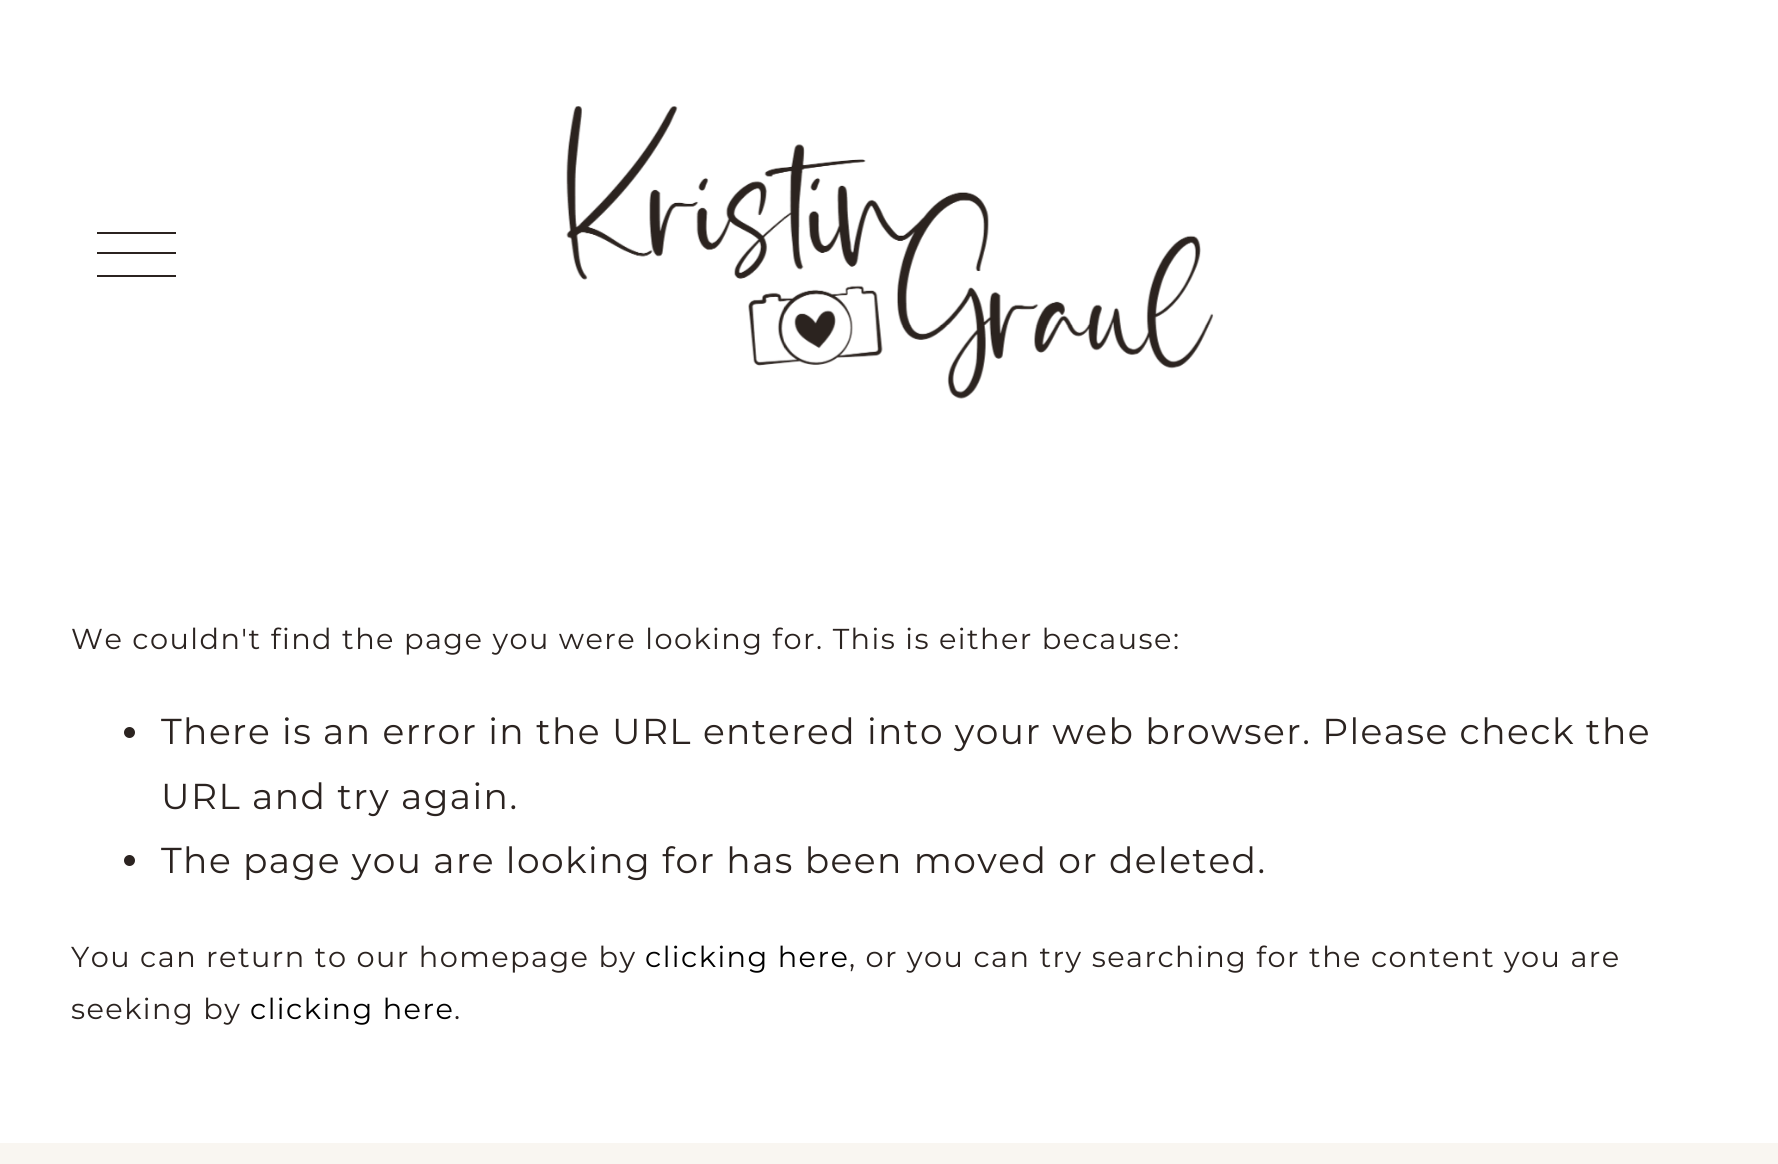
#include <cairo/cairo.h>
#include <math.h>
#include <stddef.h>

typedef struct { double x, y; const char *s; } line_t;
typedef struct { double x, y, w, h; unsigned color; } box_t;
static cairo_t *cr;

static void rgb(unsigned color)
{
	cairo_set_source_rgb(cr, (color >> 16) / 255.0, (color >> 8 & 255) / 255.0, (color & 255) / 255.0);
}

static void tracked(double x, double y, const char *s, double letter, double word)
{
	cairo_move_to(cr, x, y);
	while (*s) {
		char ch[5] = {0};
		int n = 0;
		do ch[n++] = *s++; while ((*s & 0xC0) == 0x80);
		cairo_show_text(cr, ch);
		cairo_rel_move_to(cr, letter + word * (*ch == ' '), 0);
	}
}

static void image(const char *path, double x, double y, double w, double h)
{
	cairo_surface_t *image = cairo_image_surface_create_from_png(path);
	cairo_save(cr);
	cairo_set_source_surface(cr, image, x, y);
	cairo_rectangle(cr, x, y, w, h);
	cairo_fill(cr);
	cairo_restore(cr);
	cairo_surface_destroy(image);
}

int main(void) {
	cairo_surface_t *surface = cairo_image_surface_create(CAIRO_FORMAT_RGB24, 1778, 1164);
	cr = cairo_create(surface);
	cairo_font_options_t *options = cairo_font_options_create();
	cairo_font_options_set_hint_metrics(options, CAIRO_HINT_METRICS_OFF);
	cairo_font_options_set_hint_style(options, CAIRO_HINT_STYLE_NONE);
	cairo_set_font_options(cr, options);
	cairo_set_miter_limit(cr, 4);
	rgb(0xffffff);
	cairo_paint(cr);
	{
		static const box_t items[] = {
			{97, 232, 79, 2, 0x2b2320},
			{97, 252, 79, 2, 0x2b2320},
			{97, 275, 79, 2, 0x2b2320},
		};
		for (size_t i = 0; i < sizeof items / sizeof *items; i++) {
			rgb(items[i].color);
			cairo_rectangle(cr, items[i].x, items[i].y, items[i].w, items[i].h);
			cairo_fill(cr);
		}
	}
	image("img/1.png", 566, 106, 648, 293);
	cairo_arc(cr, 129.5, 732.5, 5.5, 0, 2 * M_PI);
	cairo_fill(cr);
	cairo_arc(cr, 129.5, 860.5, 5.5, 0, 2 * M_PI);
	cairo_fill(cr);
	rgb(0xf9f6f1);
	cairo_rectangle(cr, 0, 1143, 1778, 21);
	cairo_fill(cr);
	cairo_select_font_face(cr, "Montserrat", CAIRO_FONT_SLANT_NORMAL, CAIRO_FONT_WEIGHT_NORMAL);
	cairo_set_font_size(cr, 28.8);
	rgb(0x2b2320);
	tracked(71, 649, "We couldn't find the page you were looking for. This is either because:", 1.45, 0);
	cairo_set_font_size(cr, 36);
	{
		static const line_t items[] = {
			{161, 744, "There is an error in the URL entered into your web browser. Please check the"},
			{161, 809, "URL and try again."},
			{161, 873, "The page you are looking for has been moved or deleted."},
		};
		for (size_t i = 0; i < sizeof items / sizeof *items; i++) {
			tracked(items[i].x, items[i].y, items[i].s, 1.45, 0);
		}
	}
	cairo_set_font_size(cr, 28.8);
	tracked(71, 967, "You can return to our homepage by", 1.45, 0);
	rgb(0x000000);
	tracked(645, 967, "clicking here", 1.45, 0);
	rgb(0x2b2320);
	tracked(849, 967, ", or you can try searching for the content you are", 1.45, 0);
	tracked(71, 1019, "seeking by", 1.45, 0);
	rgb(0x000000);
	tracked(250, 1019, "clicking here", 1.45, 0);
	rgb(0x2b2320);
	tracked(454, 1019, ".", 1.45, 0);
	cairo_surface_write_to_png(surface, "page.png");
	cairo_font_options_destroy(options);
	cairo_destroy(cr);
	cairo_surface_destroy(surface);
	return 0;
}
